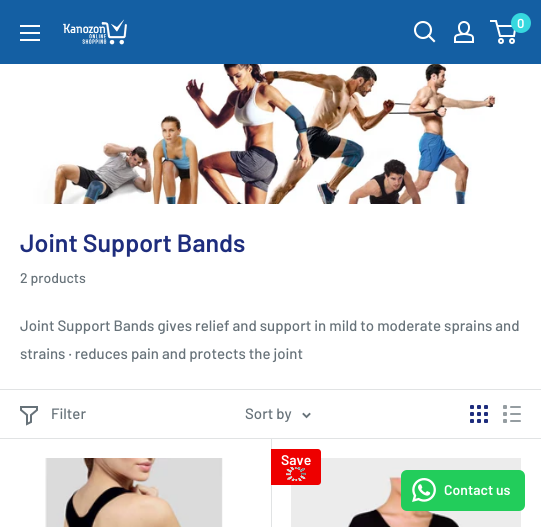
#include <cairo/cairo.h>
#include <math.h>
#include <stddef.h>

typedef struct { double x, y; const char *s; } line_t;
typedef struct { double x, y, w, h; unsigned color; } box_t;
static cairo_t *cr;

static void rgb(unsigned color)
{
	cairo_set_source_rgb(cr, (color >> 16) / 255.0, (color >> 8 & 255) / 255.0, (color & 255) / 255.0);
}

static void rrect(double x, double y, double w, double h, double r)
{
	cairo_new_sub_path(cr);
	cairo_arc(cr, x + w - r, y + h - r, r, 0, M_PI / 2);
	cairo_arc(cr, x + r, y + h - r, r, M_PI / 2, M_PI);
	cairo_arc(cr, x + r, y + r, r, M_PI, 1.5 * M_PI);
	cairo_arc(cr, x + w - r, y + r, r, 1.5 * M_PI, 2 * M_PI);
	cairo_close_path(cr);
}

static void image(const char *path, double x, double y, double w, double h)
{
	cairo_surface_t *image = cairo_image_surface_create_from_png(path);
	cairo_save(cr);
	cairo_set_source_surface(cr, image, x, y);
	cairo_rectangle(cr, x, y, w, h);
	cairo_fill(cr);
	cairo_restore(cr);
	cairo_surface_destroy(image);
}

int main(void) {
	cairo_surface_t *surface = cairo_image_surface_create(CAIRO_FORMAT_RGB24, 541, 527);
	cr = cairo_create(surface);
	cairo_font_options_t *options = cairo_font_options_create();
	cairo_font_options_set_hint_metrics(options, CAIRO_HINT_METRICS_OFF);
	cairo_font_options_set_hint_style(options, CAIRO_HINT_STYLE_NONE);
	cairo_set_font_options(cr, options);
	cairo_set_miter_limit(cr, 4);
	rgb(0xffffff);
	cairo_paint(cr);
	rgb(0x145fa3);
	cairo_rectangle(cr, 0, 0, 541, 64);
	cairo_fill(cr);
	image("img/1.png", 20, 25, 20, 16);
	image("img/2.png", 63, 19, 64, 26);
	cairo_new_path(cr);
	cairo_move_to(cr, 434, 41);
	cairo_line_to(cr, 428.5, 35.5);
	rgb(0xffffff);
	cairo_set_line_width(cr, 2.1);
	cairo_set_line_cap(cr, CAIRO_LINE_CAP_SQUARE);
	cairo_stroke(cr);
	cairo_arc(cr, 423, 30, 8, 0, 2 * M_PI);
	cairo_set_line_cap(cr, CAIRO_LINE_CAP_BUTT);
	cairo_stroke(cr);
	image("img/3.png", 454, 21, 20, 22);
	cairo_arc(cr, 501, 41, 2, 0, 2 * M_PI);
	cairo_set_line_width(cr, 2);
	cairo_stroke(cr);
	cairo_arc(cr, 512, 41, 2, 0, 2 * M_PI);
	cairo_stroke(cr);
	cairo_new_path(cr);
	cairo_move_to(cr, 497.5, 26);
	cairo_line_to(cr, 515.5, 26);
	cairo_line_to(cr, 514, 36);
	cairo_line_to(cr, 500, 36);
	cairo_line_to(cr, 496, 21);
	cairo_line_to(cr, 490, 21);
	cairo_stroke(cr);
	rgb(0x36d8df);
	cairo_arc(cr, 521, 23, 10, 0, 2 * M_PI);
	cairo_fill(cr);
	image("img/4.png", 0, 64, 541, 140);
	{
		static const box_t items[] = {
			{0, 389, 541, 1, 0xe1e3e4},
			{271, 438, 1, 89, 0xe1e3e4},
			{0, 438, 541, 1, 0xe1e3e4},
		};
		for (size_t i = 0; i < sizeof items / sizeof *items; i++) {
			rgb(items[i].color);
			cairo_rectangle(cr, items[i].x, items[i].y, items[i].w, items[i].h);
			cairo_fill(cr);
		}
	}
	cairo_new_path(cr);
	cairo_move_to(cr, 37, 410);
	cairo_line_to(cr, 31, 415);
	cairo_line_to(cr, 31, 422);
	cairo_line_to(cr, 27, 424);
	cairo_line_to(cr, 27, 415);
	cairo_line_to(cr, 21, 410);
	cairo_line_to(cr, 21, 407);
	cairo_line_to(cr, 37, 407);
	cairo_close_path(cr);
	rgb(0x677279);
	cairo_set_line_cap(cr, CAIRO_LINE_CAP_SQUARE);
	cairo_stroke(cr);
	cairo_new_path(cr);
	cairo_move_to(cr, 309.5, 414);
	cairo_line_to(cr, 306.5, 417);
	cairo_line_to(cr, 303.5, 414);
	cairo_set_line_width(cr, 1.9);
	cairo_stroke(cr);
	image("img/5.png", 470, 405, 18, 18);
	image("img/6.png", 503, 405, 18, 18);
	image("img/7.png", 45, 458, 178, 69);
	image("img/9.png", 291, 458, 230, 69);
	rgb(0xee0000);
	cairo_new_path(cr);
	cairo_move_to(cr, 271, 449);
	cairo_line_to(cr, 318, 449);
	cairo_curve_to(cr, 319.5, 449, 321, 450.5, 321, 452);
	cairo_line_to(cr, 321, 482);
	cairo_curve_to(cr, 321, 483.5, 319.5, 485, 318, 485);
	cairo_line_to(cr, 271, 485);
	cairo_close_path(cr);
	cairo_fill(cr);
	image("img/8.png", 286, 467, 20, 14);
	rgb(0x22cd5b);
	rrect(401, 470, 124, 41, 6);
	cairo_fill(cr);
	image("img/10.png", 412, 478, 24, 24);
	cairo_select_font_face(cr, "Barlow SemiBold", CAIRO_FONT_SLANT_NORMAL, CAIRO_FONT_WEIGHT_NORMAL);
	cairo_set_font_size(cr, 13);
	rgb(0xffffff);
	cairo_move_to(cr, 517, 28);
	cairo_show_text(cr, "0");
	cairo_set_font_size(cr, 25);
	rgb(0x1e2d7d);
	cairo_move_to(cr, 20, 252);
	cairo_show_text(cr, "Joint Support Bands");
	cairo_select_font_face(cr, "Barlow Medium", CAIRO_FONT_SLANT_NORMAL, CAIRO_FONT_WEIGHT_NORMAL);
	cairo_set_font_size(cr, 14);
	rgb(0x677279);
	cairo_move_to(cr, 20, 283);
	cairo_show_text(cr, "2 products");
	cairo_set_font_size(cr, 15);
	{
		static const line_t items[] = {
			{20, 331, "Joint Support Bands gives relief and support in mild to moderate sprains and"},
			{20, 359, "strains · reduces pain and protects the joint"},
			{51, 419, "Filter"},
			{245, 419, "Sort by"},
		};
		for (size_t i = 0; i < sizeof items / sizeof *items; i++) {
			cairo_move_to(cr, items[i].x, items[i].y);
			cairo_show_text(cr, items[i].s);
		}
	}
	cairo_select_font_face(cr, "Barlow SemiBold", CAIRO_FONT_SLANT_NORMAL, CAIRO_FONT_WEIGHT_NORMAL);
	cairo_set_font_size(cr, 14);
	rgb(0xffffff);
	cairo_move_to(cr, 281, 465);
	cairo_show_text(cr, "Save");
	cairo_move_to(cr, 444, 495);
	cairo_show_text(cr, "Contact us");
	cairo_surface_write_to_png(surface, "page.png");
	cairo_font_options_destroy(options);
	cairo_destroy(cr);
	cairo_surface_destroy(surface);
	return 0;
}
